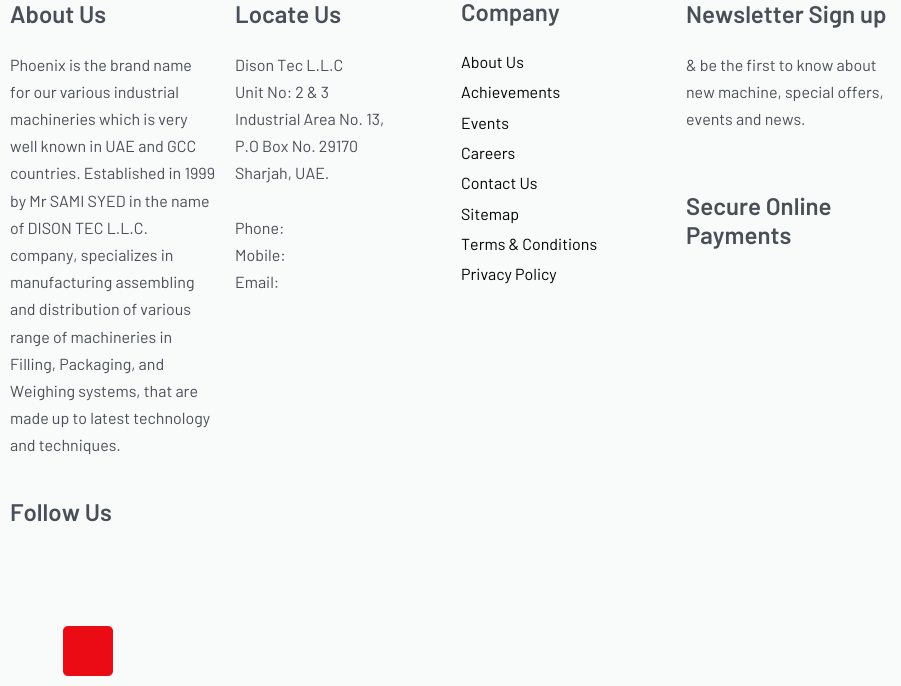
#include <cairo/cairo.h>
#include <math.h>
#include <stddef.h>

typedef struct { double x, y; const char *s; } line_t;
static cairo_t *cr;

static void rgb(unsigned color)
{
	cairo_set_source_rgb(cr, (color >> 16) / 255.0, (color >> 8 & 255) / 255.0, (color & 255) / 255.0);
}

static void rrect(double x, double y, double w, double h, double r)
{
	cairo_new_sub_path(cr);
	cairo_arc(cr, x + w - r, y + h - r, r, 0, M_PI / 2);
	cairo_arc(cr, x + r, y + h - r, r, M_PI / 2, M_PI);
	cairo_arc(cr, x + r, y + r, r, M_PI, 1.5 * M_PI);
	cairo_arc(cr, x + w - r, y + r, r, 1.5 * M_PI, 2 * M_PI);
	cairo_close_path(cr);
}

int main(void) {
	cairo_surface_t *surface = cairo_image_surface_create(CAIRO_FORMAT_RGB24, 901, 686);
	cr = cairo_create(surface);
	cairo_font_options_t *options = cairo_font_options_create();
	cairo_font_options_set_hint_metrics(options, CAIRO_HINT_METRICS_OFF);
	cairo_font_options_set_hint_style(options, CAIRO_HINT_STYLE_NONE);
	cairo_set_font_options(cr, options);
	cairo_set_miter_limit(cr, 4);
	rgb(0xf9fafa);
	cairo_paint(cr);
	rgb(0xea0b14);
	rrect(63, 626, 50, 50, 5);
	cairo_fill(cr);
	cairo_select_font_face(cr, "Barlow SemiBold", CAIRO_FONT_SLANT_NORMAL, CAIRO_FONT_WEIGHT_NORMAL);
	cairo_set_font_size(cr, 24);
	rgb(0x484f56);
	cairo_move_to(cr, 10, 23);
	cairo_show_text(cr, "About Us");
	cairo_select_font_face(cr, "Barlow", CAIRO_FONT_SLANT_NORMAL, CAIRO_FONT_WEIGHT_NORMAL);
	cairo_set_font_size(cr, 16);
	{
		static const line_t items[] = {
			{10, 71, "Phoenix is the brand name"},
			{10, 98, "for our various industrial"},
			{10, 125, "machineries which is very"},
			{10, 152, "well known in UAE and GCC"},
			{10, 179, "countries. Established in 1999"},
			{10, 207, "by Mr SAMI SYED in the name"},
			{10, 234, "of DISON TEC L.L.C."},
			{10, 261, "company, specializes in"},
			{10, 288, "manufacturing assembling"},
			{10, 315, "and distribution of various"},
			{10, 343, "range of machineries in"},
			{10, 370, "Filling, Packaging, and"},
			{10, 397, "Weighing systems, that are"},
			{10, 424, "made up to latest technology"},
			{10, 451, "and techniques."},
		};
		for (size_t i = 0; i < sizeof items / sizeof *items; i++) {
			cairo_move_to(cr, items[i].x, items[i].y);
			cairo_show_text(cr, items[i].s);
		}
	}
	cairo_select_font_face(cr, "Barlow SemiBold", CAIRO_FONT_SLANT_NORMAL, CAIRO_FONT_WEIGHT_NORMAL);
	cairo_set_font_size(cr, 24);
	cairo_move_to(cr, 10, 521);
	cairo_show_text(cr, "Follow Us");
	cairo_move_to(cr, 235, 23);
	cairo_show_text(cr, "Locate Us");
	cairo_select_font_face(cr, "Barlow", CAIRO_FONT_SLANT_NORMAL, CAIRO_FONT_WEIGHT_NORMAL);
	cairo_set_font_size(cr, 16);
	{
		static const line_t items[] = {
			{235, 71, "Dison Tec L.L.C"},
			{235, 98, "Unit No: 2 & 3"},
			{235, 125, "Industrial Area No. 13,"},
			{235, 152, "P.O Box No. 29170"},
			{235, 179, "Sharjah, UAE."},
			{235, 234, "Phone:"},
			{235, 261, "Mobile:"},
			{235, 288, "Email:"},
		};
		for (size_t i = 0; i < sizeof items / sizeof *items; i++) {
			cairo_move_to(cr, items[i].x, items[i].y);
			cairo_show_text(cr, items[i].s);
		}
	}
	cairo_select_font_face(cr, "Barlow SemiBold", CAIRO_FONT_SLANT_NORMAL, CAIRO_FONT_WEIGHT_NORMAL);
	cairo_set_font_size(cr, 24);
	cairo_move_to(cr, 461, 21);
	cairo_show_text(cr, "Company");
	cairo_select_font_face(cr, "Barlow", CAIRO_FONT_SLANT_NORMAL, CAIRO_FONT_WEIGHT_NORMAL);
	cairo_set_font_size(cr, 16);
	rgb(0x000000);
	{
		static const line_t items[] = {
			{461, 68, "About Us"},
			{461, 98, "Achievements"},
			{461, 129, "Events"},
			{461, 159, "Careers"},
			{461, 189, "Contact Us"},
			{461, 220, "Sitemap"},
			{461, 250, "Terms & Conditions"},
			{461, 280, "Privacy Policy"},
		};
		for (size_t i = 0; i < sizeof items / sizeof *items; i++) {
			cairo_move_to(cr, items[i].x, items[i].y);
			cairo_show_text(cr, items[i].s);
		}
	}
	cairo_select_font_face(cr, "Barlow SemiBold", CAIRO_FONT_SLANT_NORMAL, CAIRO_FONT_WEIGHT_NORMAL);
	cairo_set_font_size(cr, 24);
	rgb(0x484f56);
	cairo_move_to(cr, 686, 23);
	cairo_show_text(cr, "Newsletter Sign up");
	cairo_select_font_face(cr, "Barlow", CAIRO_FONT_SLANT_NORMAL, CAIRO_FONT_WEIGHT_NORMAL);
	cairo_set_font_size(cr, 16);
	{
		static const line_t items[] = {
			{686, 71, "& be the first to know about"},
			{686, 98, "new machine, special offers,"},
			{686, 125, "events and news."},
		};
		for (size_t i = 0; i < sizeof items / sizeof *items; i++) {
			cairo_move_to(cr, items[i].x, items[i].y);
			cairo_show_text(cr, items[i].s);
		}
	}
	cairo_select_font_face(cr, "Barlow SemiBold", CAIRO_FONT_SLANT_NORMAL, CAIRO_FONT_WEIGHT_NORMAL);
	cairo_set_font_size(cr, 24);
	cairo_move_to(cr, 686, 215);
	cairo_show_text(cr, "Secure Online");
	cairo_move_to(cr, 686, 244);
	cairo_show_text(cr, "Payments");
	cairo_surface_write_to_png(surface, "page.png");
	cairo_font_options_destroy(options);
	cairo_destroy(cr);
	cairo_surface_destroy(surface);
	return 0;
}
